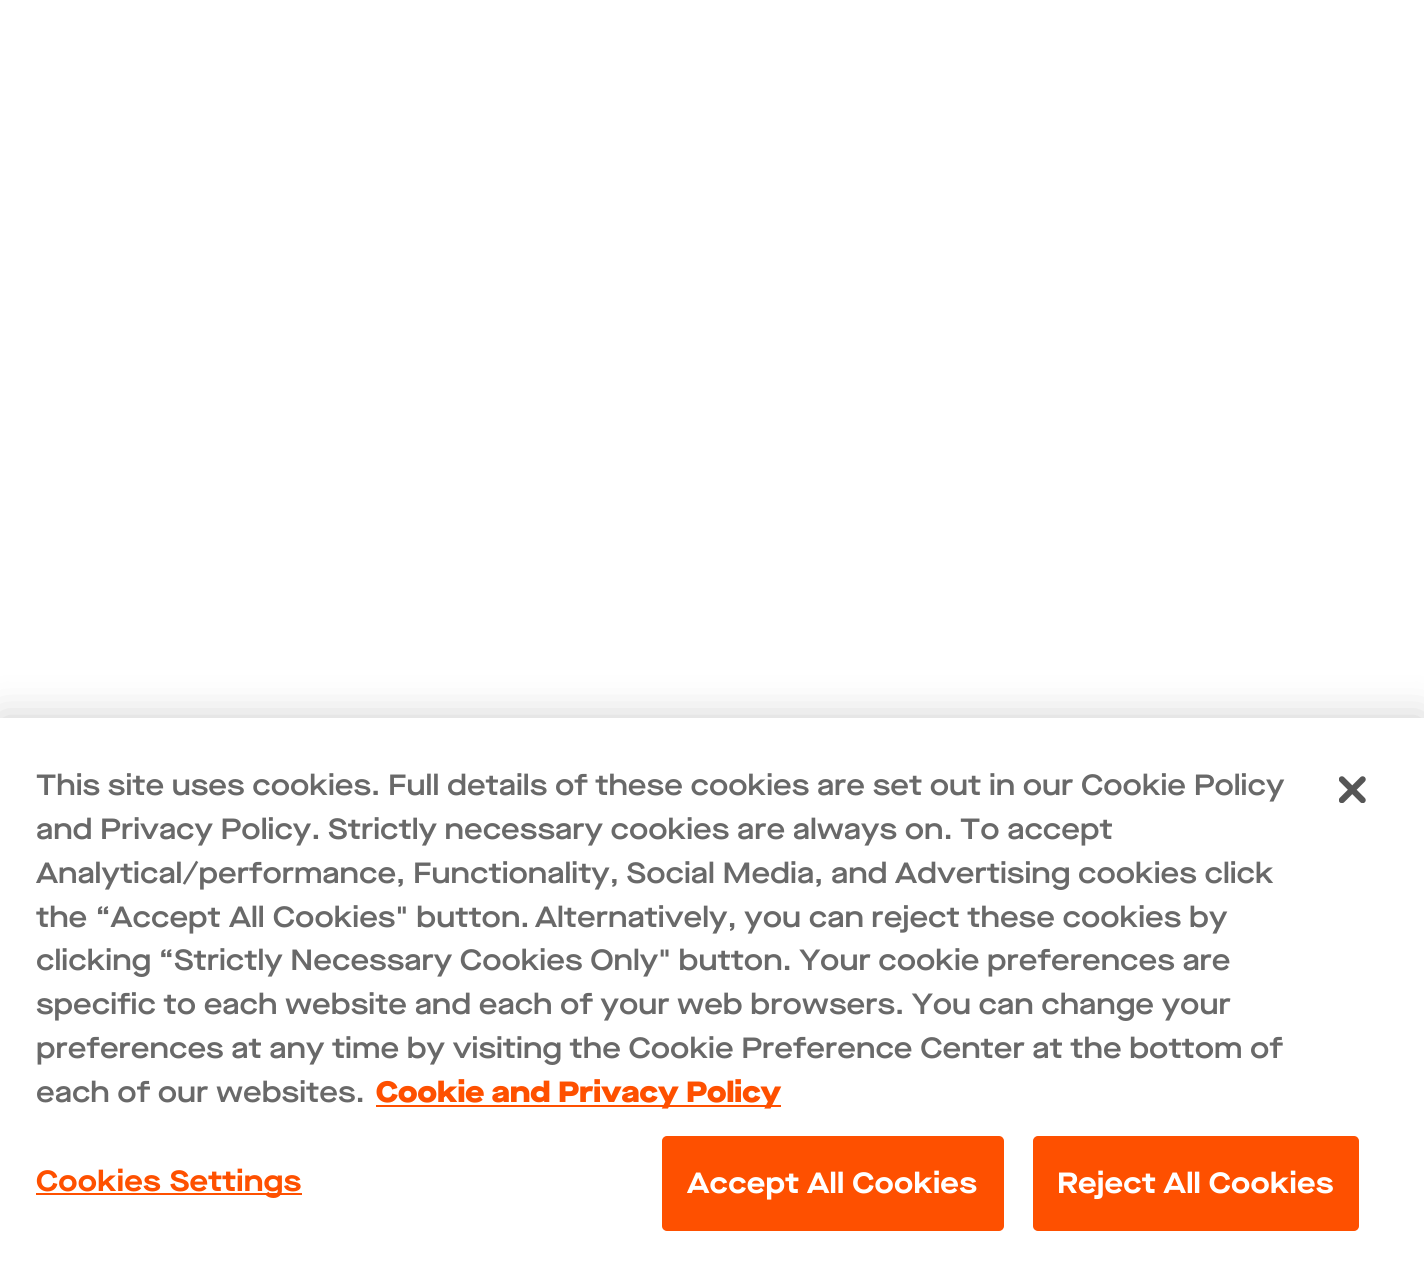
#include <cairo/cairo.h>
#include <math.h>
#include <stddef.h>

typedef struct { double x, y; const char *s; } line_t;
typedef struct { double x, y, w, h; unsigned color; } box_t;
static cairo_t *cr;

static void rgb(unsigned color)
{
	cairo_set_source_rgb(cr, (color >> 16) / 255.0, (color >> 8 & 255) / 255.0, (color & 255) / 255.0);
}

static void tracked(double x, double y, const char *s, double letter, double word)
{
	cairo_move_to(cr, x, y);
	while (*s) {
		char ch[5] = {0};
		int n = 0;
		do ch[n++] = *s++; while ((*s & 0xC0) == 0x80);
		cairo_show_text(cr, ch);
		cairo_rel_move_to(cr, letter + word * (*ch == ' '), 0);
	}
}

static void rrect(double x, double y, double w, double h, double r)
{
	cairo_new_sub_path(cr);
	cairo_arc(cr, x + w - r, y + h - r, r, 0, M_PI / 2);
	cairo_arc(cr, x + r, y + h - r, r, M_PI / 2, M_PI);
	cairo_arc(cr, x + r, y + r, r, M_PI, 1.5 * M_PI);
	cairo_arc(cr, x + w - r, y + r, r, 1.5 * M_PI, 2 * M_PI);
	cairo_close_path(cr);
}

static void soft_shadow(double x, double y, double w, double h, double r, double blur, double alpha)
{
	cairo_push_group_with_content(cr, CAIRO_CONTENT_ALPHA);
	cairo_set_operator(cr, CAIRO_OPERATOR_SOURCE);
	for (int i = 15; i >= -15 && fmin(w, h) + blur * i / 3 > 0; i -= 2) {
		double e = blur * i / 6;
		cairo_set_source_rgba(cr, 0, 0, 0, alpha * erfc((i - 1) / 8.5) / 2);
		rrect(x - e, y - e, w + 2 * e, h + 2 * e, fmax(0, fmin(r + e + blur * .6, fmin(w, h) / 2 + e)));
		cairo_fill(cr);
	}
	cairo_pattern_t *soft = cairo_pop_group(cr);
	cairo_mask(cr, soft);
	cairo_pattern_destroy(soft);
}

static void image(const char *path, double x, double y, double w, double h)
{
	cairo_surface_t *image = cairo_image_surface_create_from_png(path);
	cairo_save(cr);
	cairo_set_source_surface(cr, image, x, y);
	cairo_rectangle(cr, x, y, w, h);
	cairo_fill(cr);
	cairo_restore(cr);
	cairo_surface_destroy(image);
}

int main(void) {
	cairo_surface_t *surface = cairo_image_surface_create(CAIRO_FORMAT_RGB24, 1424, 1278);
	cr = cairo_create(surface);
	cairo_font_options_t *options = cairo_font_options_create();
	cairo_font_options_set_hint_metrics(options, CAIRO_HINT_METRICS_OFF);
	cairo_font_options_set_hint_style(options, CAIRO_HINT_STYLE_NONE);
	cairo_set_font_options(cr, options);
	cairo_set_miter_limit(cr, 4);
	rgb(0xffffff);
	cairo_paint(cr);
	rgb(0x000000);
	soft_shadow(0, 718, 1424, 560, 0, 20, 0.2);
	{
		static const box_t items[] = {
			{0, 718, 1424, 560, 0xffffff},
			{376, 1105, 405, 2, 0xfe5000},
			{36, 1193, 266, 2, 0xfe5000},
		};
		for (size_t i = 0; i < sizeof items / sizeof *items; i++) {
			rgb(items[i].color);
			cairo_rectangle(cr, items[i].x, items[i].y, items[i].w, items[i].h);
			cairo_fill(cr);
		}
	}
	rrect(663, 1137, 340, 93, 4);
	cairo_fill_preserve(cr);
	cairo_stroke(cr);
	rrect(1034, 1137, 324, 93, 4);
	cairo_fill_preserve(cr);
	cairo_stroke(cr);
	image("img/1.png", 1339, 776, 27, 27);
	cairo_select_font_face(cr, "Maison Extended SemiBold", CAIRO_FONT_SLANT_NORMAL, CAIRO_FONT_WEIGHT_NORMAL);
	cairo_set_font_size(cr, 29.25);
	rgb(0x696969);
	{
		static const line_t items[] = {
			{36, 795, "This site uses cookies. Full details of these cookies are set out in our Cookie Policy"},
			{36, 839, "and Privacy Policy. Strictly necessary cookies are always on."},
			{960, 839, "To accept"},
			{36, 883, "Analytical/performance, Functionality, Social Media, and Advertising cookies click"},
		};
		for (size_t i = 0; i < sizeof items / sizeof *items; i++) {
			cairo_move_to(cr, items[i].x, items[i].y);
			cairo_show_text(cr, items[i].s);
		}
	}
	tracked(36, 927, "the “Accept All Cookies\" button.", 0, 0.5);
	{
		static const line_t items[] = {
			{535, 927, "Alternatively, you can reject these cookies by"},
			{36, 970, "clicking “Strictly Necessary Cookies Only\" button. Your cookie preferences are"},
			{36, 1014, "specific to each website and each of your web browsers."},
			{912, 1014, "You can change your"},
			{36, 1058, "preferences at any time by visiting the Cookie Preference Center at the bottom of"},
			{36, 1102, "each of our websites."},
		};
		for (size_t i = 0; i < sizeof items / sizeof *items; i++) {
			cairo_move_to(cr, items[i].x, items[i].y);
			cairo_show_text(cr, items[i].s);
		}
	}
	cairo_select_font_face(cr, "Maison Extended Black", CAIRO_FONT_SLANT_NORMAL, CAIRO_FONT_WEIGHT_NORMAL);
	rgb(0xfe5000);
	cairo_move_to(cr, 376, 1102);
	cairo_show_text(cr, "Cookie and Privacy Policy");
	cairo_select_font_face(cr, "Maison Extended", CAIRO_FONT_SLANT_NORMAL, CAIRO_FONT_WEIGHT_BOLD);
	tracked(36, 1191, "Cookies Settings", 0.25, 1);
	rgb(0xffffff);
	tracked(687, 1193, "Accept All Cookies", 0.25, 0);
	tracked(1057, 1193, "Reject All Cookies", 0.25, 0);
	cairo_surface_write_to_png(surface, "page.png");
	cairo_font_options_destroy(options);
	cairo_destroy(cr);
	cairo_surface_destroy(surface);
	return 0;
}
